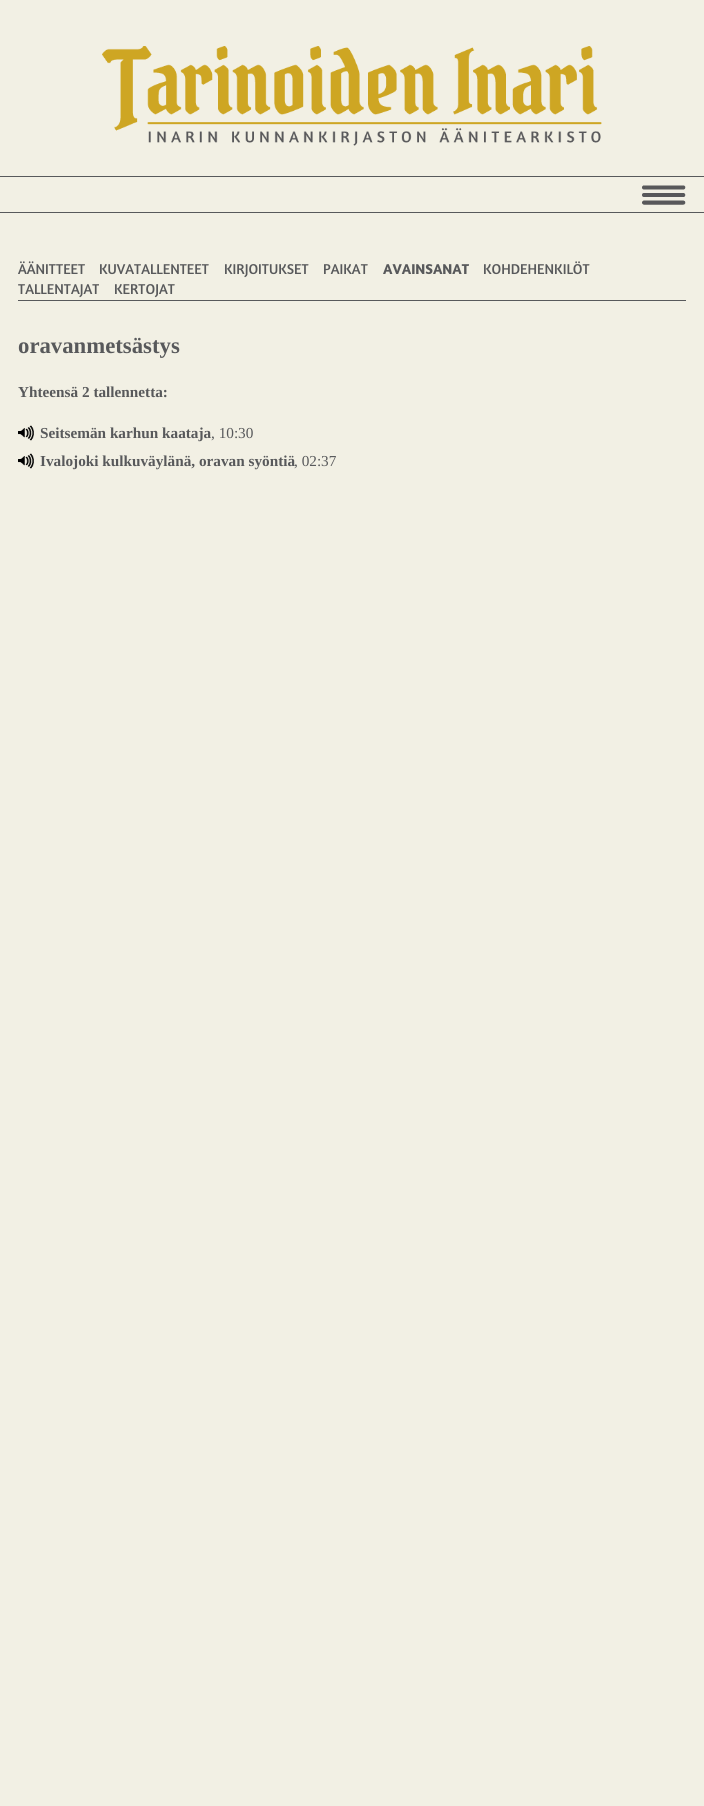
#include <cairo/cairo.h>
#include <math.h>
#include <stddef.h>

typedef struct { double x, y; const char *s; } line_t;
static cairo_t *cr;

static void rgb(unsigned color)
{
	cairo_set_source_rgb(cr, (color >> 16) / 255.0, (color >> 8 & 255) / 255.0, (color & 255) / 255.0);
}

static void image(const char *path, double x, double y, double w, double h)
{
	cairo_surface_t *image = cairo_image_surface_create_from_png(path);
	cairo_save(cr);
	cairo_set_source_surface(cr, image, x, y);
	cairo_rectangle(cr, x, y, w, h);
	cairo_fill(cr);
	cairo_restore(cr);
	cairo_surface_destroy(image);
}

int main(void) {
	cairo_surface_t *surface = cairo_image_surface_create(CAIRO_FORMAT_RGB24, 704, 1806);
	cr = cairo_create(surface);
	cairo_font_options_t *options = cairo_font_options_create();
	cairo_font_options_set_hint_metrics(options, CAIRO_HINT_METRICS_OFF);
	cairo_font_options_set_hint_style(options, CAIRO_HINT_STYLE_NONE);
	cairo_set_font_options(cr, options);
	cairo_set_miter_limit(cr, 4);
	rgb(0xf2f0e4);
	cairo_paint(cr);
	image("img/1.png", 102, 46, 500, 100);
	rgb(0x58595b);
	cairo_rectangle(cr, 0, 176, 704, 1);
	cairo_fill(cr);
	cairo_rectangle(cr, 0, 212, 704, 1);
	cairo_fill(cr);
	image("img/2.png", 642, 185, 44, 20);
	cairo_rectangle(cr, 18, 300, 668, 1);
	cairo_fill(cr);
	image("img/3.png", 18, 425, 16, 16);
	image("img/3.png", 18, 453, 16, 16);
	cairo_select_font_face(cr, "Amaranth", CAIRO_FONT_SLANT_NORMAL, CAIRO_FONT_WEIGHT_NORMAL);
	cairo_set_font_size(cr, 14.5);
	{
		static const line_t items[] = {
			{18, 274, "ÄÄNITTEET"},
			{99, 274, "KUVATALLENTEET"},
			{224, 274, "KIRJOITUKSET"},
			{323, 274, "PAIKAT"},
		};
		for (size_t i = 0; i < sizeof items / sizeof *items; i++) {
			cairo_move_to(cr, items[i].x, items[i].y);
			cairo_show_text(cr, items[i].s);
		}
	}
	cairo_select_font_face(cr, "Amaranth", CAIRO_FONT_SLANT_NORMAL, CAIRO_FONT_WEIGHT_BOLD);
	cairo_move_to(cr, 383, 274);
	cairo_show_text(cr, "AVAINSANAT");
	cairo_select_font_face(cr, "Amaranth", CAIRO_FONT_SLANT_NORMAL, CAIRO_FONT_WEIGHT_NORMAL);
	{
		static const line_t items[] = {
			{483, 274, "KOHDEHENKILÖT"},
			{18, 294, "TALLENTAJAT"},
			{114, 294, "KERTOJAT"},
		};
		for (size_t i = 0; i < sizeof items / sizeof *items; i++) {
			cairo_move_to(cr, items[i].x, items[i].y);
			cairo_show_text(cr, items[i].s);
		}
	}
	cairo_select_font_face(cr, "Liberation Serif", CAIRO_FONT_SLANT_NORMAL, CAIRO_FONT_WEIGHT_BOLD);
	cairo_set_font_size(cr, 22.75);
	cairo_move_to(cr, 18, 353);
	cairo_show_text(cr, "oravanmetsästys");
	cairo_set_font_size(cr, 15.25);
	cairo_move_to(cr, 18, 397);
	cairo_show_text(cr, "Yhteensä 2 tallennetta:");
	cairo_move_to(cr, 40, 438);
	cairo_show_text(cr, "Seitsemän karhun kaataja");
	cairo_select_font_face(cr, "Liberation Serif", CAIRO_FONT_SLANT_NORMAL, CAIRO_FONT_WEIGHT_NORMAL);
	cairo_move_to(cr, 211, 438);
	cairo_show_text(cr, ", 10:30");
	cairo_select_font_face(cr, "Liberation Serif", CAIRO_FONT_SLANT_NORMAL, CAIRO_FONT_WEIGHT_BOLD);
	cairo_move_to(cr, 40, 466);
	cairo_show_text(cr, "Ivalojoki kulkuväylänä, oravan syöntiä");
	cairo_select_font_face(cr, "Liberation Serif", CAIRO_FONT_SLANT_NORMAL, CAIRO_FONT_WEIGHT_NORMAL);
	cairo_move_to(cr, 294, 466);
	cairo_show_text(cr, ", 02:37");
	cairo_surface_write_to_png(surface, "page.png");
	cairo_font_options_destroy(options);
	cairo_destroy(cr);
	cairo_surface_destroy(surface);
	return 0;
}
